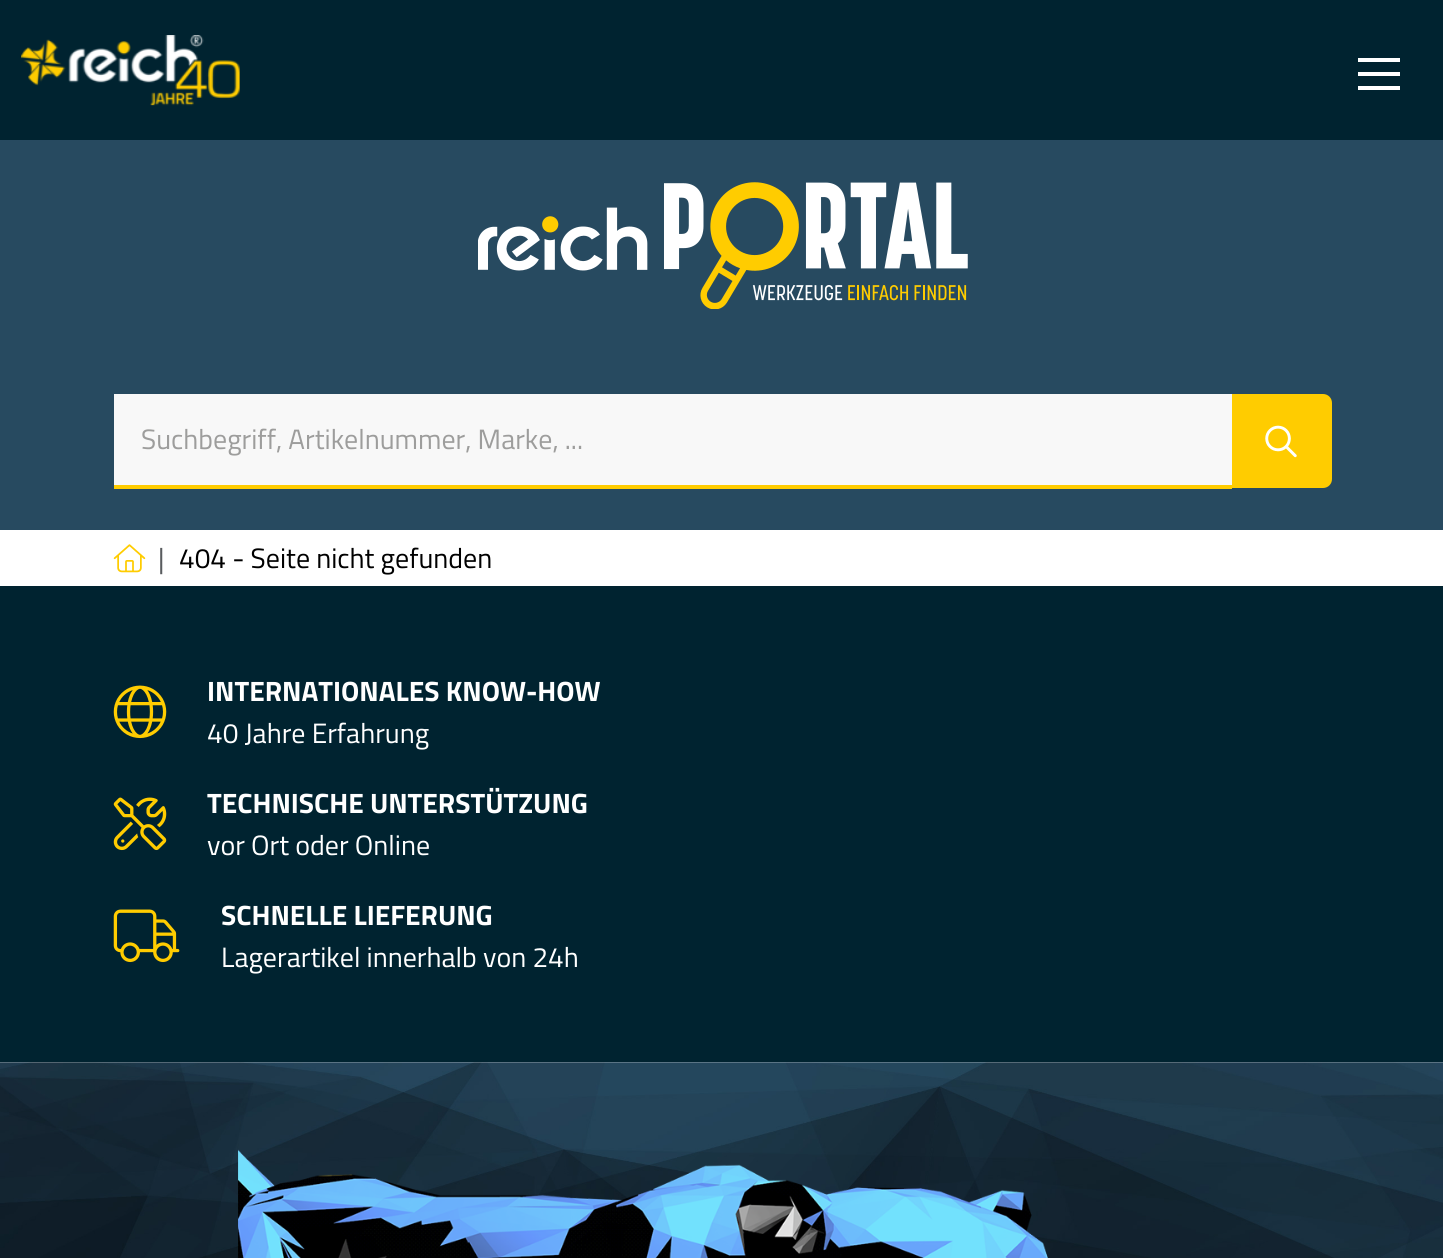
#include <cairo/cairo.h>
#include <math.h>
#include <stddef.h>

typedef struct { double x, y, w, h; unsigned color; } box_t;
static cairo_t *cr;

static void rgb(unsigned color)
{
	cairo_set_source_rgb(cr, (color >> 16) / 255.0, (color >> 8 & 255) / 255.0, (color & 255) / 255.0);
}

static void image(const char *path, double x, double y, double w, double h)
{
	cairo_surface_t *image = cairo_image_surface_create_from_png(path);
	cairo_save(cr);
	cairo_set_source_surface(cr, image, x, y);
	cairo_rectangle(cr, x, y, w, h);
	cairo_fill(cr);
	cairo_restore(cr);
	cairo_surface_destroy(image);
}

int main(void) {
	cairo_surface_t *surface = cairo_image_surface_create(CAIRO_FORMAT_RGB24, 1443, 1258);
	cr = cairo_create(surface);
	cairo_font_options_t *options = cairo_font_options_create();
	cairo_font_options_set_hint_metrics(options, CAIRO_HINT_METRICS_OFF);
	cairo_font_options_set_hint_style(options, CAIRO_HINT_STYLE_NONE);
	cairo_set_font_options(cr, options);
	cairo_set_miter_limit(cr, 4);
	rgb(0xffffff);
	cairo_paint(cr);
	rgb(0x002330);
	cairo_rectangle(cr, 0, 0, 1443, 140);
	cairo_fill(cr);
	image("img/1.png", 21, 35, 219, 71);
	{
		static const box_t items[] = {
			{1358, 72, 42, 4, 0xffffff},
			{1358, 58, 42, 4, 0xffffff},
			{1358, 86, 42, 4, 0xffffff},
			{0, 140, 1443, 390, 0x274a60},
		};
		for (size_t i = 0; i < sizeof items / sizeof *items; i++) {
			rgb(items[i].color);
			cairo_rectangle(cr, items[i].x, items[i].y, items[i].w, items[i].h);
			cairo_fill(cr);
		}
	}
	image("img/2.png", 478, 182, 490, 127);
	rgb(0xf8f8f8);
	cairo_rectangle(cr, 114, 394, 1118, 91);
	cairo_fill(cr);
	rgb(0xffcc00);
	cairo_rectangle(cr, 114, 485, 1118, 4);
	cairo_fill(cr);
	cairo_new_path(cr);
	cairo_move_to(cr, 1233, 395);
	cairo_line_to(cr, 1323, 395);
	cairo_curve_to(cr, 1327.5, 395, 1331, 398.5, 1331, 403);
	cairo_line_to(cr, 1331, 479);
	cairo_curve_to(cr, 1331, 483.5, 1327.5, 487, 1323, 487);
	cairo_line_to(cr, 1233, 487);
	cairo_close_path(cr);
	cairo_fill_preserve(cr);
	cairo_stroke(cr);
	image("img/3.png", 1265, 425, 32, 33);
	image("img/4.png", 113, 544, 33, 29);
	rgb(0x002330);
	cairo_rectangle(cr, 0, 586, 1443, 476);
	cairo_fill(cr);
	image("img/5.png", 113, 685, 54, 54);
	image("img/6.png", 113, 797, 54, 54);
	image("img/7.png", 113, 909, 67, 54);
	image("img/8.png", 0, 1062, 1443, 196);
	image("img/9.png", 238, 1149, 810, 109);
	cairo_select_font_face(cr, "Titillium Web", CAIRO_FONT_SLANT_NORMAL, CAIRO_FONT_WEIGHT_NORMAL);
	cairo_set_font_size(cr, 28);
	rgb(0x9d9d9c);
	cairo_move_to(cr, 141, 449);
	cairo_show_text(cr, "Suchbegriff, Artikelnummer, Marke, ...");
	rgb(0x595c5f);
	cairo_move_to(cr, 158, 568);
	cairo_show_text(cr, "|");
	rgb(0x000000);
	cairo_move_to(cr, 179, 568);
	cairo_show_text(cr, "404 - Seite nicht gefunden");
	cairo_select_font_face(cr, "Titillium Web", CAIRO_FONT_SLANT_NORMAL, CAIRO_FONT_WEIGHT_BOLD);
	rgb(0xffffff);
	cairo_move_to(cr, 207, 701);
	cairo_show_text(cr, "INTERNATIONALES KNOW-HOW");
	cairo_select_font_face(cr, "Titillium Web", CAIRO_FONT_SLANT_NORMAL, CAIRO_FONT_WEIGHT_NORMAL);
	cairo_move_to(cr, 207, 743);
	cairo_show_text(cr, "40 Jahre Erfahrung");
	cairo_select_font_face(cr, "Titillium Web", CAIRO_FONT_SLANT_NORMAL, CAIRO_FONT_WEIGHT_BOLD);
	cairo_move_to(cr, 207, 813);
	cairo_show_text(cr, "TECHNISCHE UNTERSTÜTZUNG");
	cairo_select_font_face(cr, "Titillium Web", CAIRO_FONT_SLANT_NORMAL, CAIRO_FONT_WEIGHT_NORMAL);
	cairo_move_to(cr, 207, 855);
	cairo_show_text(cr, "vor Ort oder Online");
	cairo_select_font_face(cr, "Titillium Web", CAIRO_FONT_SLANT_NORMAL, CAIRO_FONT_WEIGHT_BOLD);
	cairo_move_to(cr, 221, 925);
	cairo_show_text(cr, "SCHNELLE LIEFERUNG");
	cairo_select_font_face(cr, "Titillium Web", CAIRO_FONT_SLANT_NORMAL, CAIRO_FONT_WEIGHT_NORMAL);
	cairo_move_to(cr, 221, 967);
	cairo_show_text(cr, "Lagerartikel innerhalb von 24h");
	cairo_surface_write_to_png(surface, "page.png");
	cairo_font_options_destroy(options);
	cairo_destroy(cr);
	cairo_surface_destroy(surface);
	return 0;
}
